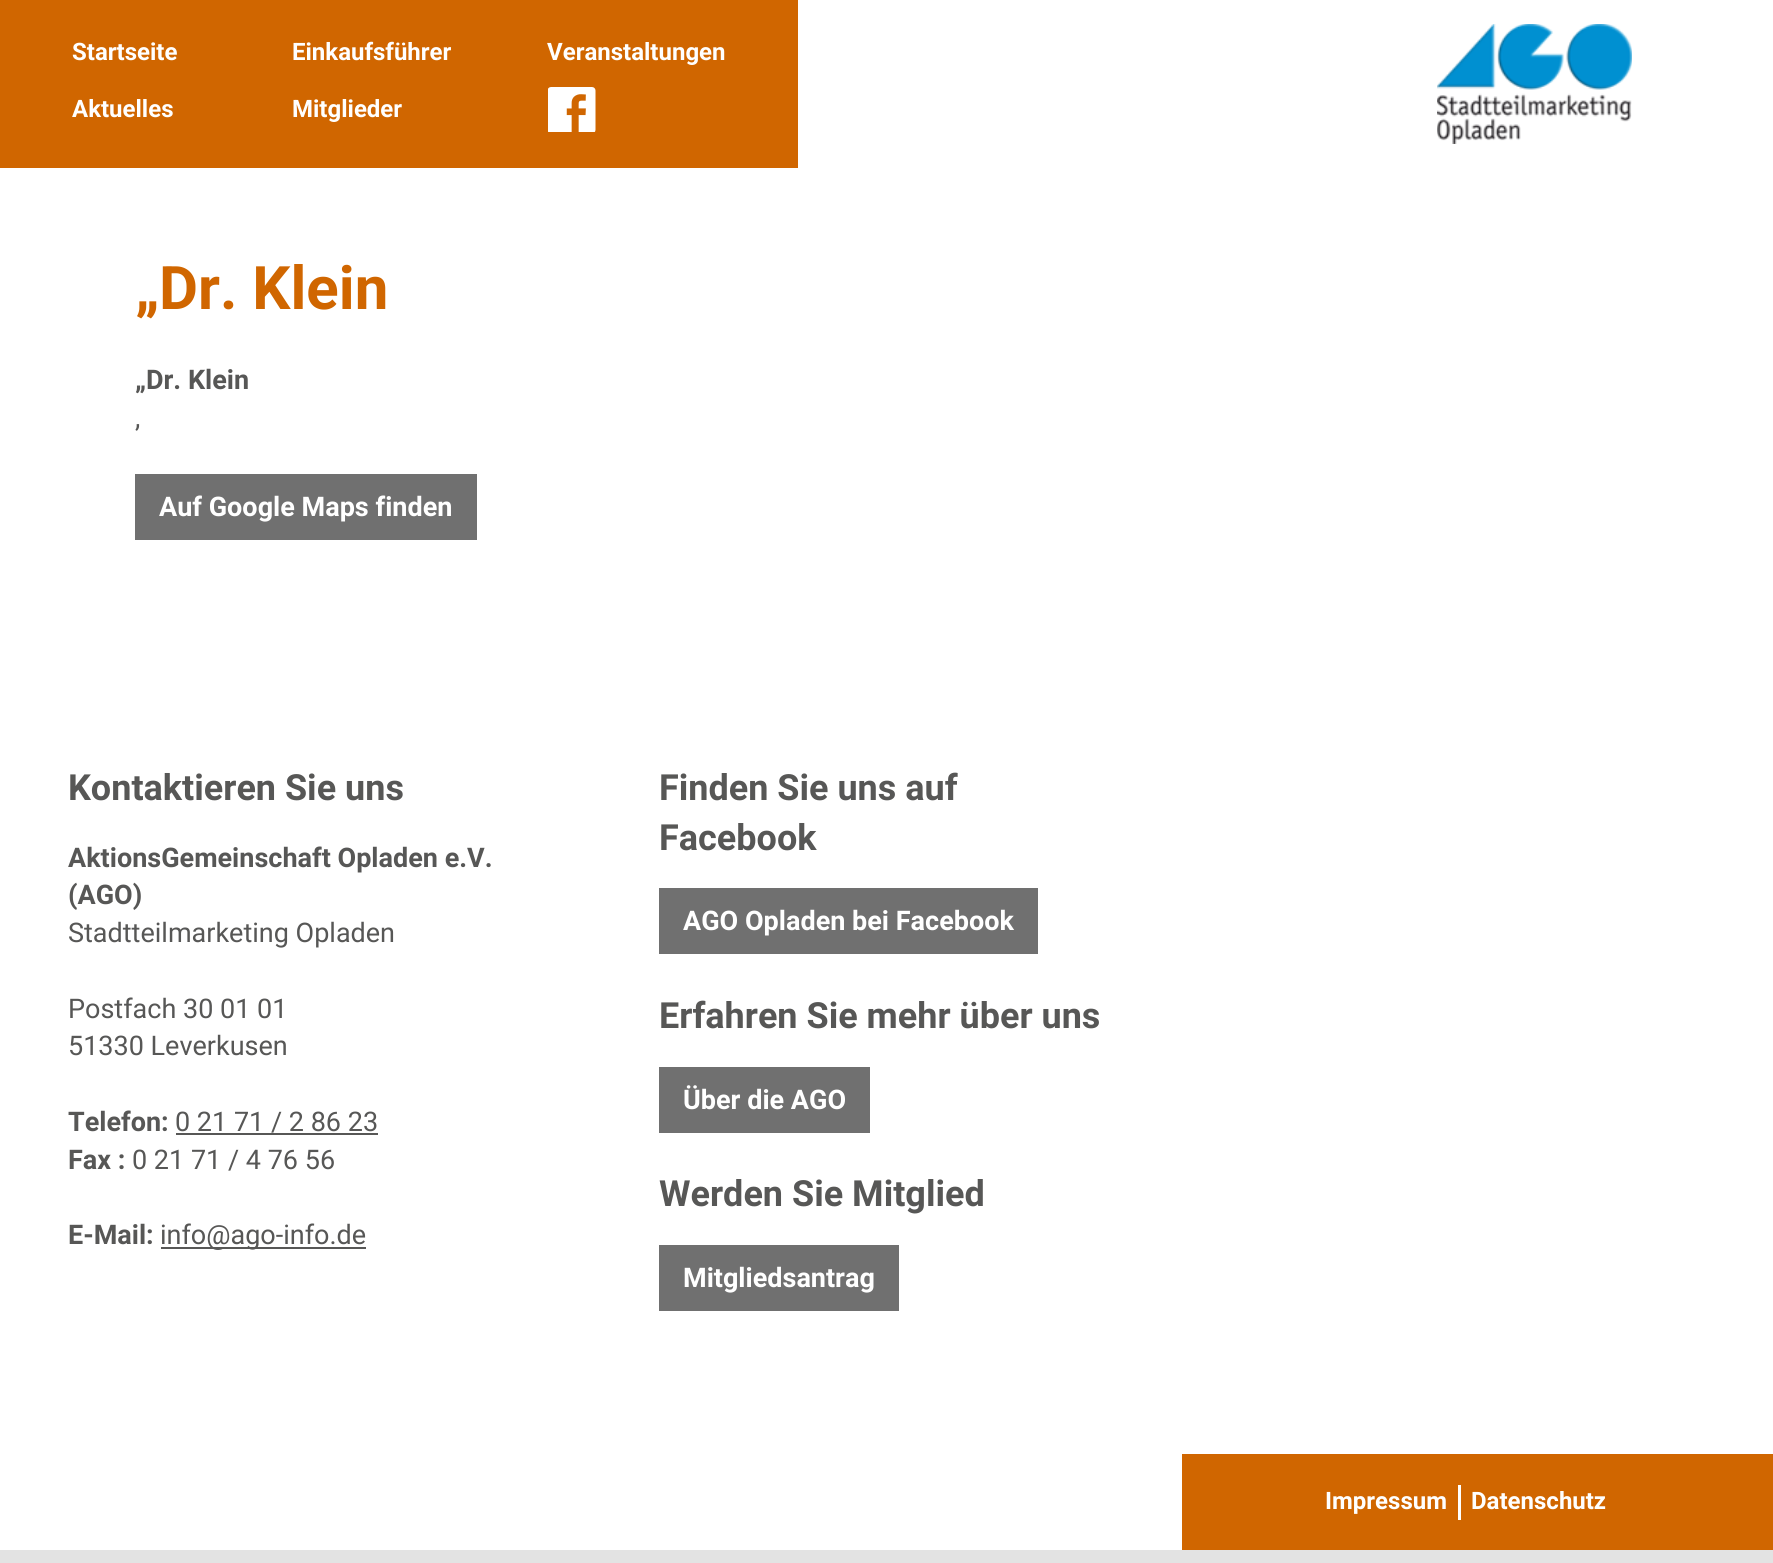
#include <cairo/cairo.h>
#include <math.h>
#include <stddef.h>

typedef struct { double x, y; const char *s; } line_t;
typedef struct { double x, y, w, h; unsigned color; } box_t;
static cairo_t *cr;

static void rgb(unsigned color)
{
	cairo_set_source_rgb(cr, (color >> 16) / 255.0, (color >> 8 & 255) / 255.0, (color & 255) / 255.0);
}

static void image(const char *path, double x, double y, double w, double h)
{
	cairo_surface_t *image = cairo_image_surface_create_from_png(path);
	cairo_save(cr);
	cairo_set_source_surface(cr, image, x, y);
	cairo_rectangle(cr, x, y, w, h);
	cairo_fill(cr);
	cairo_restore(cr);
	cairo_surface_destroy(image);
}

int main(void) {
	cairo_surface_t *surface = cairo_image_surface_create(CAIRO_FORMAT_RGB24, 1773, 1563);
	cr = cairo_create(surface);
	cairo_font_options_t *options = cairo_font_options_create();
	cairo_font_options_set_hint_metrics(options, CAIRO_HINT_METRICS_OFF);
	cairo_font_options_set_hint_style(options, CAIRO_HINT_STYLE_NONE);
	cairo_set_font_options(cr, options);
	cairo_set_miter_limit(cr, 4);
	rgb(0xe3e3e3);
	cairo_paint(cr);
	rgb(0xffffff);
	cairo_rectangle(cr, 0, 0, 1773, 1550);
	cairo_fill(cr);
	rgb(0xd06600);
	cairo_rectangle(cr, 0, 0, 798, 168);
	cairo_fill(cr);
	image("img/1.png", 548, 87, 48, 45);
	image("img/2.png", 1437, 24, 195, 120);
	{
		static const box_t items[] = {
			{135, 474, 342, 66, 0x707070},
			{176, 1133, 202, 2, 0x575756},
			{161, 1247, 205, 2, 0x575756},
			{659, 888, 379, 66, 0x707070},
			{659, 1067, 211, 66, 0x707070},
			{659, 1245, 240, 66, 0x707070},
			{1182, 1454, 591, 96, 0xd06600},
			{1458, 1485, 3, 35, 0xffffff},
		};
		for (size_t i = 0; i < sizeof items / sizeof *items; i++) {
			rgb(items[i].color);
			cairo_rectangle(cr, items[i].x, items[i].y, items[i].w, items[i].h);
			cairo_fill(cr);
		}
	}
	cairo_select_font_face(cr, "Roboto", CAIRO_FONT_SLANT_NORMAL, CAIRO_FONT_WEIGHT_BOLD);
	cairo_set_font_size(cr, 24);
	{
		static const line_t items[] = {
			{72, 60, "Startseite"},
			{292, 60, "Einkaufsführer"},
			{547, 60, "Veranstaltungen"},
			{72, 117, "Aktuelles"},
			{292, 117, "Mitglieder"},
		};
		for (size_t i = 0; i < sizeof items / sizeof *items; i++) {
			cairo_move_to(cr, items[i].x, items[i].y);
			cairo_show_text(cr, items[i].s);
		}
	}
	cairo_set_font_size(cr, 60);
	rgb(0xd06600);
	cairo_move_to(cr, 135, 309);
	cairo_show_text(cr, "„Dr. Klein");
	cairo_select_font_face(cr, "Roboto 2", CAIRO_FONT_SLANT_NORMAL, CAIRO_FONT_WEIGHT_BOLD);
	cairo_set_font_size(cr, 27);
	rgb(0x575756);
	cairo_move_to(cr, 135, 389);
	cairo_show_text(cr, "„Dr. Klein");
	cairo_select_font_face(cr, "Roboto", CAIRO_FONT_SLANT_NORMAL, CAIRO_FONT_WEIGHT_NORMAL);
	cairo_move_to(cr, 135, 427);
	cairo_show_text(cr, ",");
	cairo_select_font_face(cr, "Roboto 2", CAIRO_FONT_SLANT_NORMAL, CAIRO_FONT_WEIGHT_BOLD);
	rgb(0xffffff);
	cairo_move_to(cr, 159, 516);
	cairo_show_text(cr, "Auf Google Maps finden");
	cairo_set_font_size(cr, 36);
	rgb(0x575756);
	cairo_move_to(cr, 68, 800);
	cairo_show_text(cr, "Kontaktieren Sie uns");
	cairo_set_font_size(cr, 27);
	cairo_move_to(cr, 68, 867);
	cairo_show_text(cr, "AktionsGemeinschaft Opladen e.V.");
	cairo_move_to(cr, 68, 904);
	cairo_show_text(cr, "(AGO)");
	cairo_select_font_face(cr, "Roboto", CAIRO_FONT_SLANT_NORMAL, CAIRO_FONT_WEIGHT_NORMAL);
	{
		static const line_t items[] = {
			{68, 942, "Stadtteilmarketing Opladen"},
			{68, 1018, "Postfach 30 01 01"},
			{68, 1055, "51330 Leverkusen"},
		};
		for (size_t i = 0; i < sizeof items / sizeof *items; i++) {
			cairo_move_to(cr, items[i].x, items[i].y);
			cairo_show_text(cr, items[i].s);
		}
	}
	cairo_select_font_face(cr, "Roboto 2", CAIRO_FONT_SLANT_NORMAL, CAIRO_FONT_WEIGHT_BOLD);
	cairo_move_to(cr, 68, 1131);
	cairo_show_text(cr, "Telefon:");
	cairo_select_font_face(cr, "Roboto", CAIRO_FONT_SLANT_NORMAL, CAIRO_FONT_WEIGHT_NORMAL);
	cairo_move_to(cr, 175, 1131);
	cairo_show_text(cr, "0 21 71 / 2 86 23");
	cairo_select_font_face(cr, "Roboto 2", CAIRO_FONT_SLANT_NORMAL, CAIRO_FONT_WEIGHT_BOLD);
	cairo_move_to(cr, 68, 1169);
	cairo_show_text(cr, "Fax :");
	cairo_select_font_face(cr, "Roboto", CAIRO_FONT_SLANT_NORMAL, CAIRO_FONT_WEIGHT_NORMAL);
	cairo_move_to(cr, 132, 1169);
	cairo_show_text(cr, "0 21 71 / 4 76 56");
	cairo_select_font_face(cr, "Roboto 2", CAIRO_FONT_SLANT_NORMAL, CAIRO_FONT_WEIGHT_BOLD);
	cairo_move_to(cr, 68, 1244);
	cairo_show_text(cr, "E-Mail:");
	cairo_select_font_face(cr, "Roboto", CAIRO_FONT_SLANT_NORMAL, CAIRO_FONT_WEIGHT_NORMAL);
	cairo_move_to(cr, 160, 1244);
	cairo_show_text(cr, "info@ago-info.de");
	cairo_select_font_face(cr, "Roboto 2", CAIRO_FONT_SLANT_NORMAL, CAIRO_FONT_WEIGHT_BOLD);
	cairo_set_font_size(cr, 36);
	cairo_move_to(cr, 659, 800);
	cairo_show_text(cr, "Finden Sie uns auf");
	cairo_move_to(cr, 659, 850);
	cairo_show_text(cr, "Facebook");
	cairo_set_font_size(cr, 27);
	rgb(0xffffff);
	cairo_move_to(cr, 683, 930);
	cairo_show_text(cr, "AGO Opladen bei Facebook");
	cairo_set_font_size(cr, 36);
	rgb(0x575756);
	cairo_move_to(cr, 659, 1028);
	cairo_show_text(cr, "Erfahren Sie mehr über uns");
	cairo_set_font_size(cr, 27);
	rgb(0xffffff);
	cairo_move_to(cr, 683, 1109);
	cairo_show_text(cr, "Über die AGO");
	cairo_set_font_size(cr, 36);
	rgb(0x575756);
	cairo_move_to(cr, 659, 1206);
	cairo_show_text(cr, "Werden Sie Mitglied");
	cairo_set_font_size(cr, 27);
	rgb(0xffffff);
	cairo_move_to(cr, 683, 1287);
	cairo_show_text(cr, "Mitgliedsantrag");
	cairo_set_font_size(cr, 24);
	cairo_move_to(cr, 1325, 1509);
	cairo_show_text(cr, "Impressum");
	cairo_move_to(cr, 1471, 1509);
	cairo_show_text(cr, "Datenschutz");
	cairo_surface_write_to_png(surface, "page.png");
	cairo_font_options_destroy(options);
	cairo_destroy(cr);
	cairo_surface_destroy(surface);
	return 0;
}
